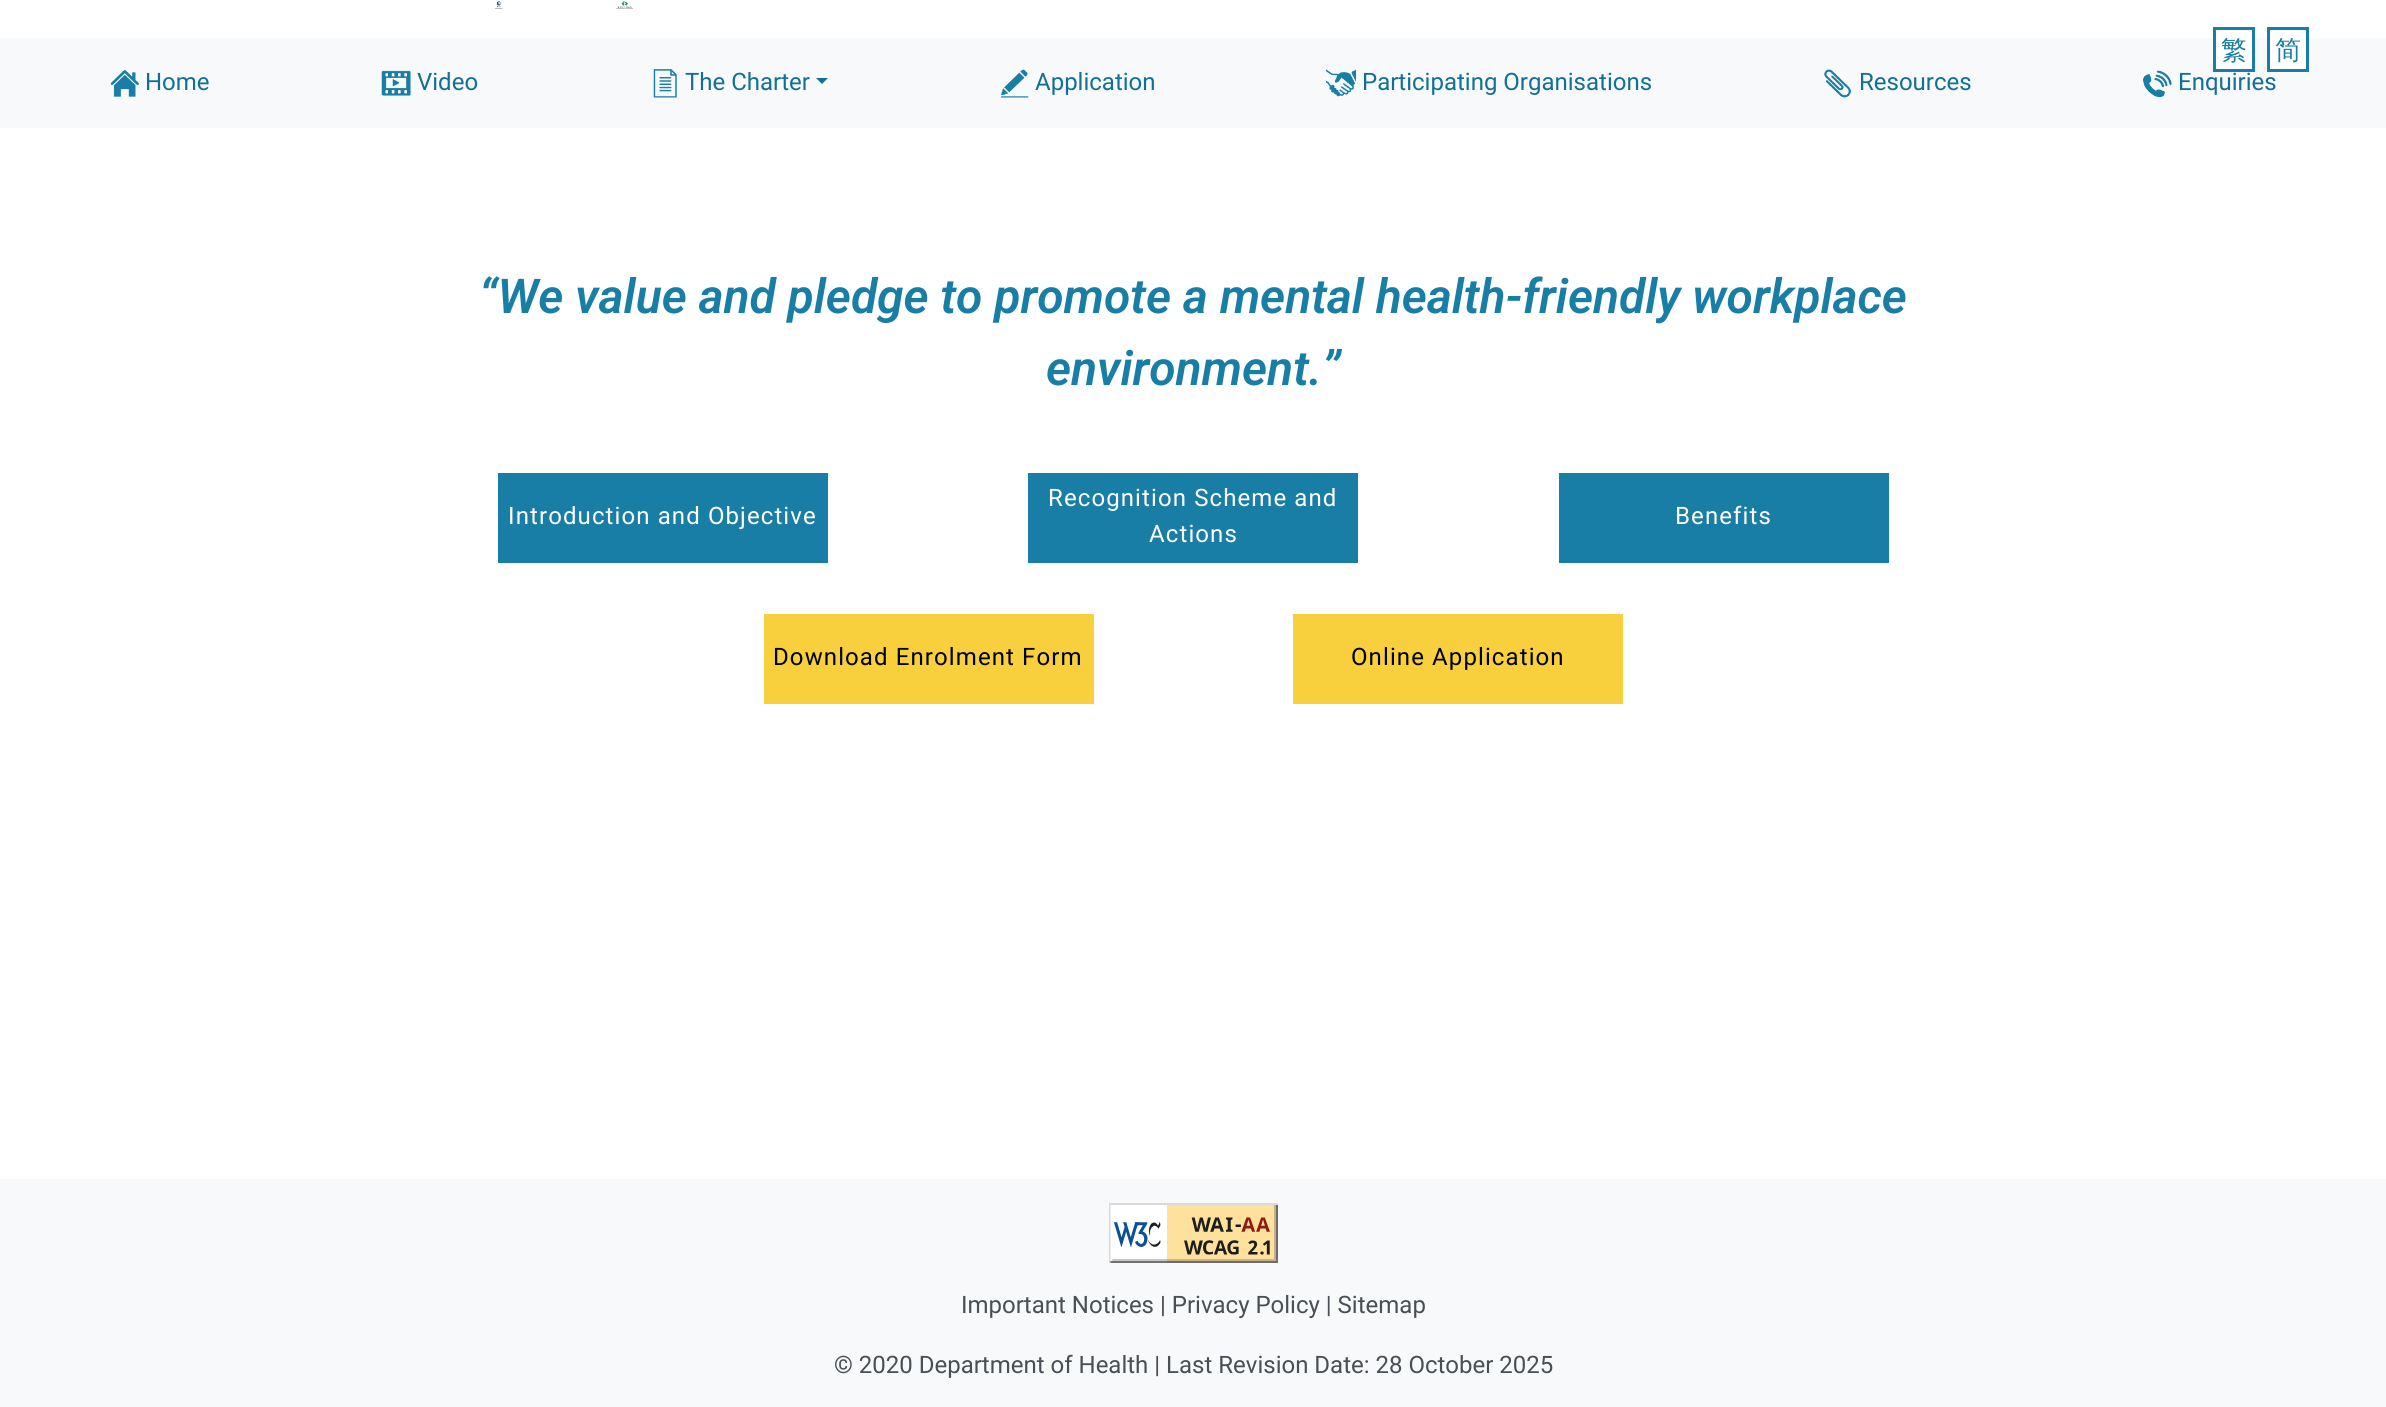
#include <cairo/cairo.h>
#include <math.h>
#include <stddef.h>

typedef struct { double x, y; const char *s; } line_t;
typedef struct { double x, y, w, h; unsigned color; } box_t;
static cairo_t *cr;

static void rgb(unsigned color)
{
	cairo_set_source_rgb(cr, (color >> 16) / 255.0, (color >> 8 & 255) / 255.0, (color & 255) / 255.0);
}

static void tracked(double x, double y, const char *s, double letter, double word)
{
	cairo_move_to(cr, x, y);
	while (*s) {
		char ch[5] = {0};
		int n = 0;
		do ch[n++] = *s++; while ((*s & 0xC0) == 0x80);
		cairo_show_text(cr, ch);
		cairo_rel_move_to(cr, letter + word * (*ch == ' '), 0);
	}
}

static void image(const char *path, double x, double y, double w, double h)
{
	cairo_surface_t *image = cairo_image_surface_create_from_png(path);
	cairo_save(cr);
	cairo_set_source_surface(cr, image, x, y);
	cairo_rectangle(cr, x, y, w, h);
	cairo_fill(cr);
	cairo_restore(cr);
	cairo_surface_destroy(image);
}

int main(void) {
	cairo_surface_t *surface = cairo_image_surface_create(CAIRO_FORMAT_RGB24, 2386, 1407);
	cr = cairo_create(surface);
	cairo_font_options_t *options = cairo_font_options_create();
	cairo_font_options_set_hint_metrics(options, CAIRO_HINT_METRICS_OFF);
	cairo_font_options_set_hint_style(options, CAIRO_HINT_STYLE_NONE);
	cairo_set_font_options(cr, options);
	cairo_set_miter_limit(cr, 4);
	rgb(0xffffff);
	cairo_paint(cr);
	image("img/1.png", 495, 1, 8, 8);
	image("img/2.png", 616, 1, 17, 8);
	rgb(0xf8f9fa);
	cairo_rectangle(cr, 0, 38, 2386, 90);
	cairo_fill(cr);
	rgb(0xffffff);
	cairo_rectangle(cr, 2216, 38, 36, 31);
	cairo_fill(cr);
	cairo_rectangle(cr, 2214.5, 28.5, 39, 42);
	rgb(0x187ea5);
	cairo_set_line_width(cr, 3);
	cairo_stroke(cr);
	rgb(0xffffff);
	cairo_rectangle(cr, 2270, 38, 36, 31);
	cairo_fill(cr);
	cairo_rectangle(cr, 2268.5, 28.5, 39, 42);
	rgb(0x187ea5);
	cairo_stroke(cr);
	image("img/3.png", 110, 70, 29, 27);
	image("img/4.png", 381, 70, 30, 26);
	image("img/5.png", 653, 69, 24, 29);
	rgb(0x127094);
	cairo_new_path(cr);
	cairo_move_to(cr, 816, 78);
	cairo_line_to(cr, 828, 78);
	cairo_line_to(cr, 822, 84);
	cairo_close_path(cr);
	cairo_fill(cr);
	image("img/6.png", 1001, 69, 28, 29);
	image("img/7.png", 1326, 69, 30, 28);
	image("img/8.png", 1824, 69, 27, 29);
	image("img/9.png", 2143, 70, 29, 27);
	{
		static const box_t items[] = {
			{498, 473, 330, 90, 0x187ea5},
			{1028, 473, 330, 90, 0x187ea5},
			{1559, 473, 330, 90, 0x187ea5},
			{764, 614, 330, 90, 0xf8d03d},
			{1293, 614, 330, 90, 0xf8d03d},
			{0, 1179, 2386, 228, 0xf8f9fa},
		};
		for (size_t i = 0; i < sizeof items / sizeof *items; i++) {
			rgb(items[i].color);
			cairo_rectangle(cr, items[i].x, items[i].y, items[i].w, items[i].h);
			cairo_fill(cr);
		}
	}
	image("img/10.png", 1109, 1203, 169, 60);
	cairo_select_font_face(cr, "WenQuanYi Zen Hei Medium", CAIRO_FONT_SLANT_NORMAL, CAIRO_FONT_WEIGHT_NORMAL);
	cairo_set_font_size(cr, 26);
	rgb(0x187ea5);
	cairo_move_to(cr, 2221, 59);
	cairo_show_text(cr, "繁");
	cairo_move_to(cr, 2275, 59);
	cairo_show_text(cr, "简");
	cairo_select_font_face(cr, "Roboto", CAIRO_FONT_SLANT_NORMAL, CAIRO_FONT_WEIGHT_NORMAL);
	cairo_set_font_size(cr, 24);
	rgb(0x127094);
	{
		static const line_t items[] = {
			{145, 90, "Home"},
			{417, 90, "Video"},
			{685, 90, "The Charter"},
			{1035, 90, "Application"},
			{1362, 90, "Participating Organisations"},
			{1859, 90, "Resources"},
			{2178, 90, "Enquiries"},
		};
		for (size_t i = 0; i < sizeof items / sizeof *items; i++) {
			cairo_move_to(cr, items[i].x, items[i].y);
			cairo_show_text(cr, items[i].s);
		}
	}
	cairo_select_font_face(cr, "Roboto SemiBold", CAIRO_FONT_SLANT_ITALIC, CAIRO_FONT_WEIGHT_NORMAL);
	cairo_set_font_size(cr, 48);
	rgb(0x187ea5);
	cairo_move_to(cr, 479, 313);
	cairo_show_text(cr, "“We value and pledge to promote a mental health-friendly workplace");
	cairo_move_to(cr, 1046, 385);
	cairo_show_text(cr, "environment.”");
	cairo_select_font_face(cr, "Roboto", CAIRO_FONT_SLANT_NORMAL, CAIRO_FONT_WEIGHT_NORMAL);
	cairo_set_font_size(cr, 24);
	rgb(0xffffff);
	{
		static const line_t items[] = {
			{508, 524, "Introduction and Objective"},
			{1048, 506, "Recognition Scheme and"},
			{1149, 542, "Actions"},
			{1675, 524, "Benefits"},
		};
		for (size_t i = 0; i < sizeof items / sizeof *items; i++) {
			tracked(items[i].x, items[i].y, items[i].s, 1.1, 0);
		}
	}
	rgb(0x000000);
	tracked(773, 665, "Download Enrolment Form", 1.1, 0);
	tracked(1351, 665, "Online Application", 1.1, 0);
	rgb(0x494f54);
	cairo_move_to(cr, 961, 1313);
	cairo_show_text(cr, "Important Notices | Privacy Policy | Sitemap");
	cairo_move_to(cr, 834, 1373);
	cairo_show_text(cr, "© 2020 Department of Health | Last Revision Date: 28 October 2025");
	cairo_surface_write_to_png(surface, "page.png");
	cairo_font_options_destroy(options);
	cairo_destroy(cr);
	cairo_surface_destroy(surface);
	return 0;
}
